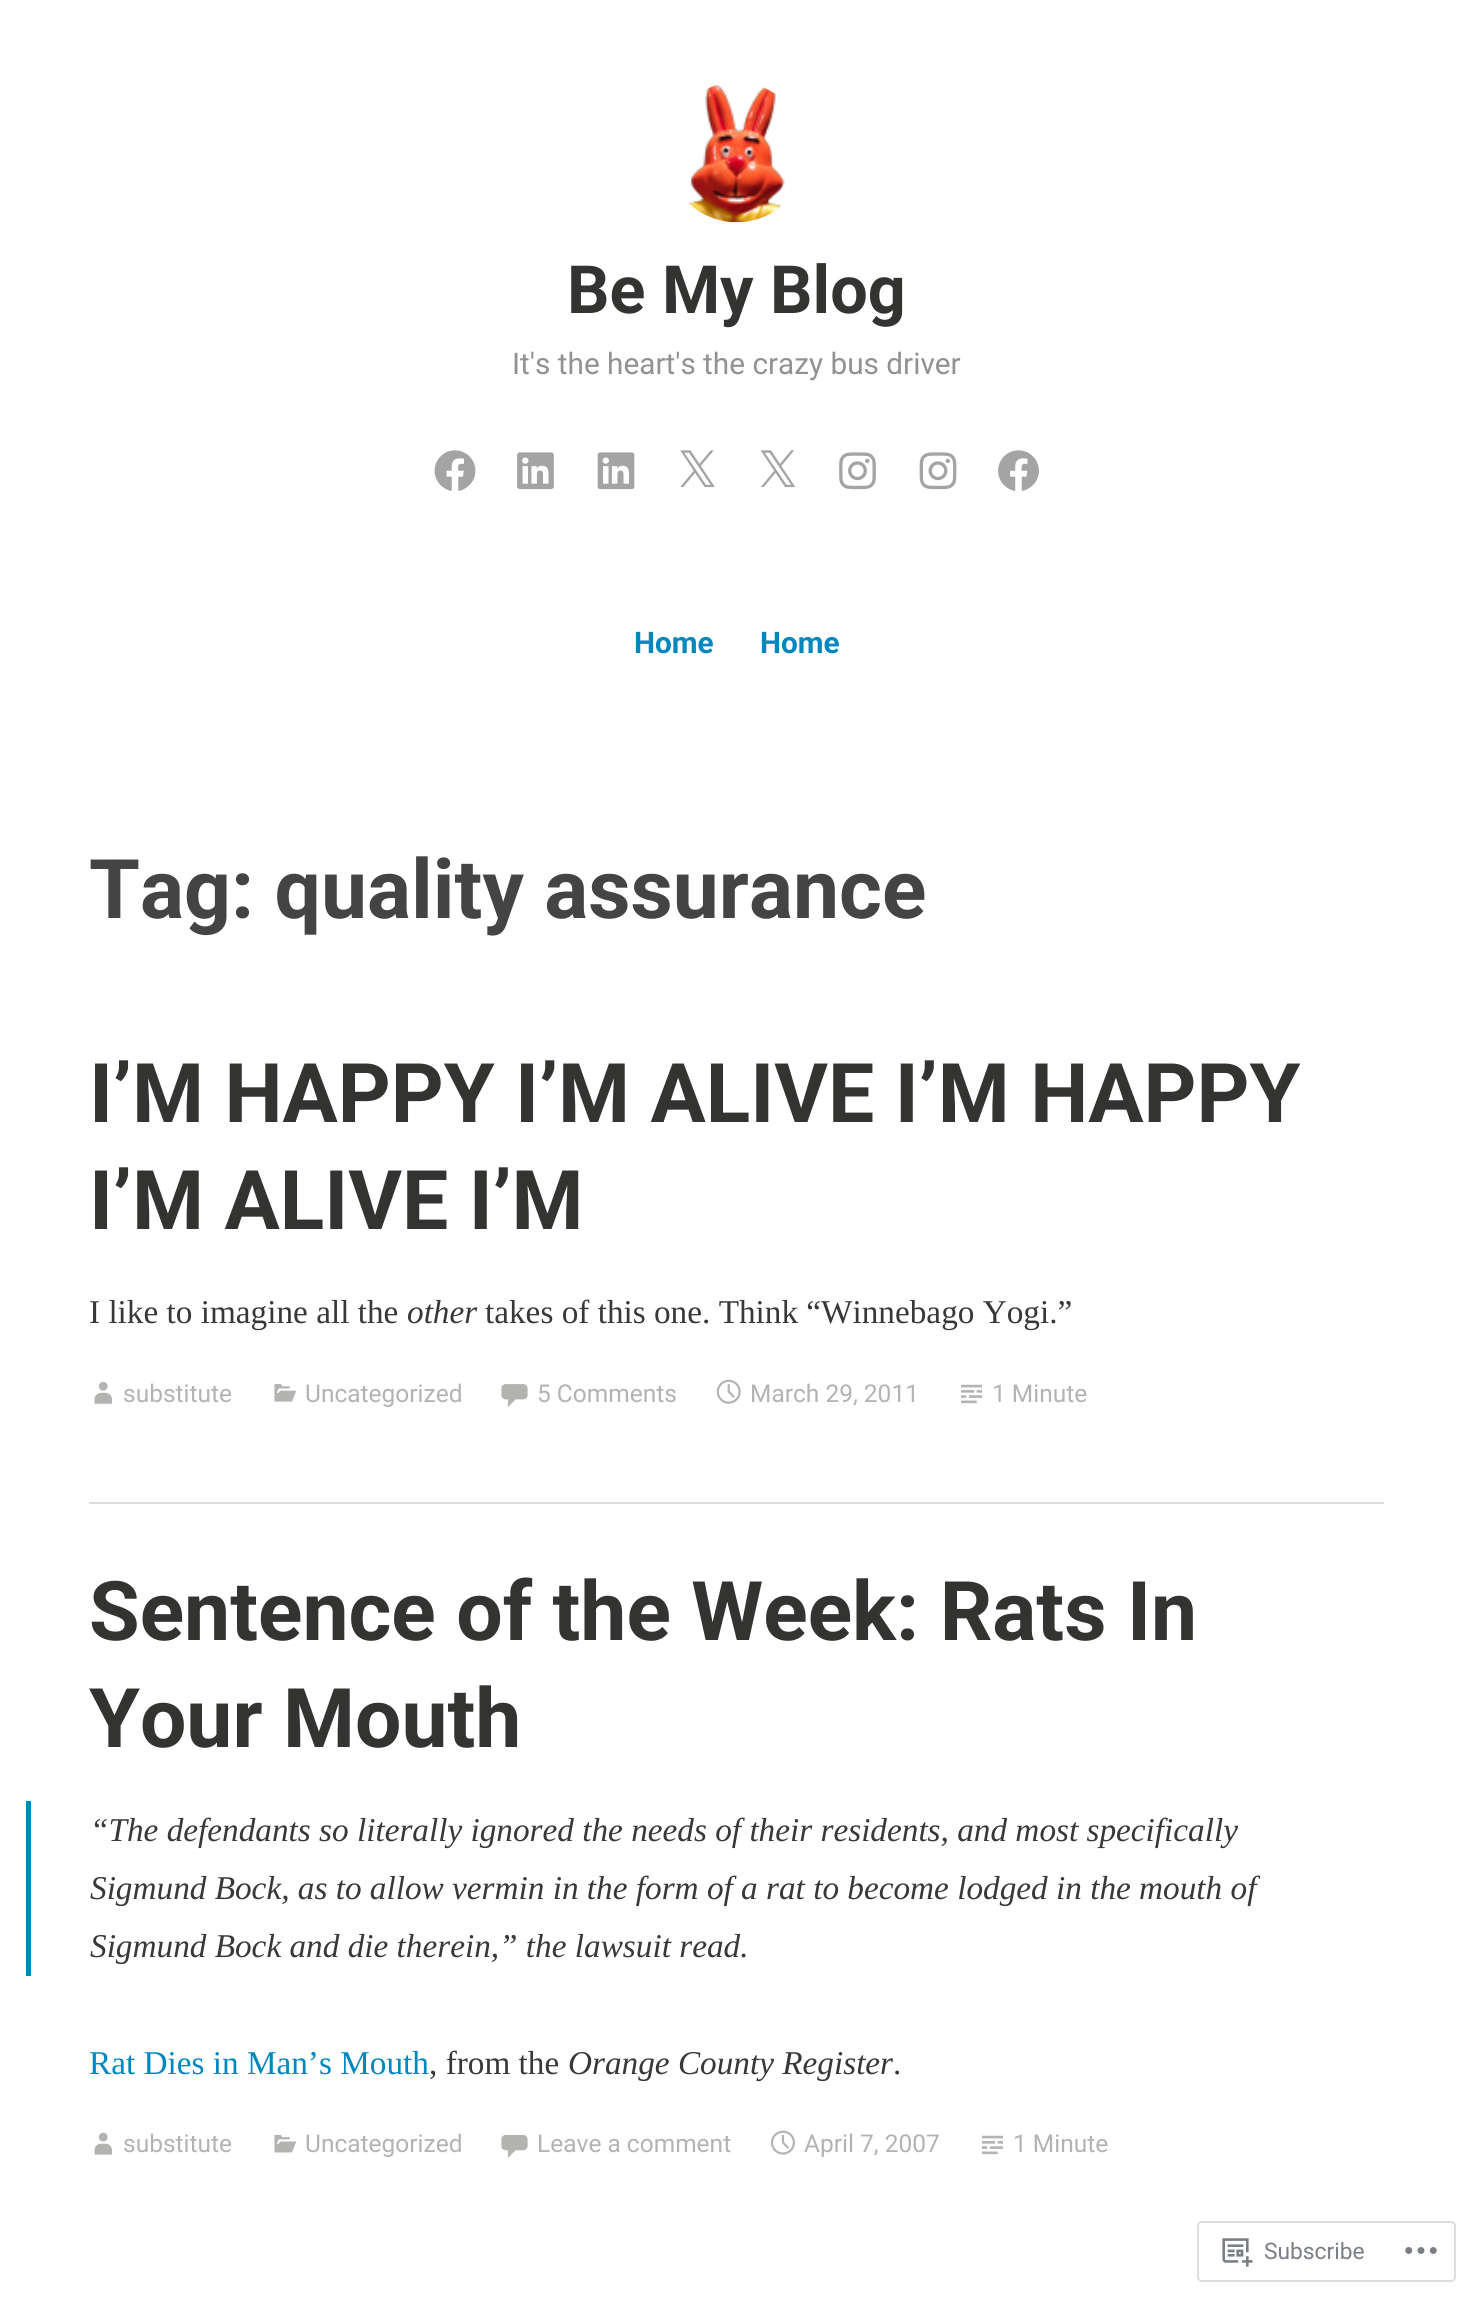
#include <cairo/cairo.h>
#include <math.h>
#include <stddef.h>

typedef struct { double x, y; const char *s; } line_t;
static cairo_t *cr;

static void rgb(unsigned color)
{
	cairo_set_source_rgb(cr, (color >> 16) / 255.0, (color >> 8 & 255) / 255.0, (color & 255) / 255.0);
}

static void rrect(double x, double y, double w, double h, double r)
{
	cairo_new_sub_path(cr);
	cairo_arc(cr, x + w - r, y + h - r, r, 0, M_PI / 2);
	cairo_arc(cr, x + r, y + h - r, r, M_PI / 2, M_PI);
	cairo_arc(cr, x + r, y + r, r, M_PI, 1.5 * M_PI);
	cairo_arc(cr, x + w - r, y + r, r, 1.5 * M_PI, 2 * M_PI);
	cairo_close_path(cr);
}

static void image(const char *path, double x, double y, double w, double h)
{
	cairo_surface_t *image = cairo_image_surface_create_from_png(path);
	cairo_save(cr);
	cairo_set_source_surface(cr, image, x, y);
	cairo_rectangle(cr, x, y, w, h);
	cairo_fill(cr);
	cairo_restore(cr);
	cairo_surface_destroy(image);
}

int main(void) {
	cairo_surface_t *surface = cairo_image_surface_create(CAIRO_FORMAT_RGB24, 1473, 2298);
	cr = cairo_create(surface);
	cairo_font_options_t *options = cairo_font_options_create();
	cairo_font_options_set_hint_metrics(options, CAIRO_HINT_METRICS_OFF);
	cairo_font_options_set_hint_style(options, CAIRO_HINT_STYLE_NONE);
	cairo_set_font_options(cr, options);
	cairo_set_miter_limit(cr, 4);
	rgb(0xffffff);
	cairo_paint(cr);
	image("img/1.png", 688, 85, 97, 138);
	image("img/2.png", 434, 450, 42, 41);
	image("img/3.png", 517, 452, 37, 38);
	image("img/4.png", 597, 452, 38, 38);
	image("img/5.png", 680, 450, 35, 38);
	image("img/6.png", 760, 450, 36, 38);
	image("img/7.png", 839, 452, 37, 38);
	image("img/8.png", 919, 452, 38, 38);
	image("img/9.png", 998, 450, 41, 41);
	image("img/10.png", 94, 1381, 18, 23);
	image("img/11.png", 274, 1384, 23, 18);
	image("img/12.png", 501, 1384, 27, 23);
	image("img/13.png", 716, 1379, 25, 25);
	image("img/14.png", 961, 1384, 21, 20);
	rgb(0xdddddd);
	cairo_rectangle(cr, 89, 1502, 1295, 2);
	cairo_fill(cr);
	rgb(0x0087be);
	cairo_rectangle(cr, 26, 1801, 5, 175);
	cairo_fill(cr);
	image("img/15.png", 94, 2132, 18, 23);
	image("img/16.png", 274, 2134, 23, 19);
	image("img/17.png", 501, 2134, 27, 24);
	image("img/18.png", 771, 2130, 24, 25);
	image("img/19.png", 981, 2135, 22, 20);
	rrect(1198, 2222, 257, 59, 4);
	rgb(0xdddddf);
	cairo_stroke(cr);
	image("img/20.png", 1222, 2238, 31, 29);
	image("img/21.png", 1405, 2247, 32, 7);
	cairo_select_font_face(cr, "Roboto", CAIRO_FONT_SLANT_NORMAL, CAIRO_FONT_WEIGHT_BOLD);
	cairo_set_font_size(cr, 66.5);
	rgb(0x333332);
	cairo_move_to(cr, 567, 313);
	cairo_show_text(cr, "Be My Blog");
	cairo_select_font_face(cr, "Roboto", CAIRO_FONT_SLANT_NORMAL, CAIRO_FONT_WEIGHT_NORMAL);
	cairo_set_font_size(cr, 29.75);
	rgb(0x929292);
	cairo_move_to(cr, 512, 374);
	cairo_show_text(cr, "It's the heart's the crazy bus driver");
	cairo_select_font_face(cr, "Roboto", CAIRO_FONT_SLANT_NORMAL, CAIRO_FONT_WEIGHT_BOLD);
	rgb(0x0087be);
	cairo_move_to(cr, 634, 653);
	cairo_show_text(cr, "Home");
	cairo_move_to(cr, 760, 653);
	cairo_show_text(cr, "Home");
	cairo_set_font_size(cr, 82.25);
	rgb(0x444444);
	cairo_move_to(cr, 89, 918);
	cairo_show_text(cr, "Tag: quality assurance");
	rgb(0x333332);
	cairo_move_to(cr, 89, 1122);
	cairo_show_text(cr, "I’M HAPPY I’M ALIVE I’M HAPPY");
	cairo_move_to(cr, 89, 1229);
	cairo_show_text(cr, "I’M ALIVE I’M");
	cairo_select_font_face(cr, "Liberation Serif", CAIRO_FONT_SLANT_NORMAL, CAIRO_FONT_WEIGHT_NORMAL);
	cairo_set_font_size(cr, 33.25);
	rgb(0x383838);
	cairo_move_to(cr, 89, 1323);
	cairo_show_text(cr, "I like to imagine all the");
	cairo_select_font_face(cr, "Liberation Serif", CAIRO_FONT_SLANT_ITALIC, CAIRO_FONT_WEIGHT_NORMAL);
	cairo_move_to(cr, 407, 1323);
	cairo_show_text(cr, "other");
	cairo_select_font_face(cr, "Liberation Serif", CAIRO_FONT_SLANT_NORMAL, CAIRO_FONT_WEIGHT_NORMAL);
	cairo_move_to(cr, 485, 1323);
	cairo_show_text(cr, "takes of this one. Think “Winnebago Yogi.”");
	cairo_select_font_face(cr, "Roboto", CAIRO_FONT_SLANT_NORMAL, CAIRO_FONT_WEIGHT_NORMAL);
	cairo_set_font_size(cr, 24.5);
	rgb(0xb3b3b1);
	{
		static const line_t items[] = {
			{123, 1402, "substitute"},
			{305, 1402, "Uncategorized"},
			{537, 1402, "5 Comments"},
			{750, 1402, "March 29, 2011"},
			{992, 1402, "1 Minute"},
		};
		for (size_t i = 0; i < sizeof items / sizeof *items; i++) {
			cairo_move_to(cr, items[i].x, items[i].y);
			cairo_show_text(cr, items[i].s);
		}
	}
	cairo_select_font_face(cr, "Roboto", CAIRO_FONT_SLANT_NORMAL, CAIRO_FONT_WEIGHT_BOLD);
	cairo_set_font_size(cr, 82.25);
	rgb(0x333332);
	cairo_move_to(cr, 89, 1640);
	cairo_show_text(cr, "Sentence of the Week: Rats In");
	cairo_move_to(cr, 89, 1747);
	cairo_show_text(cr, "Your Mouth");
	cairo_select_font_face(cr, "Liberation Serif", CAIRO_FONT_SLANT_ITALIC, CAIRO_FONT_WEIGHT_NORMAL);
	cairo_set_font_size(cr, 33.25);
	rgb(0x383838);
	{
		static const line_t items[] = {
			{90, 1841, "“The defendants so literally ignored the needs of their residents, and most specifically"},
			{90, 1899, "Sigmund Bock, as to allow vermin in the form of a rat to become lodged in the mouth of"},
			{90, 1957, "Sigmund Bock and die therein,” the lawsuit read."},
		};
		for (size_t i = 0; i < sizeof items / sizeof *items; i++) {
			cairo_move_to(cr, items[i].x, items[i].y);
			cairo_show_text(cr, items[i].s);
		}
	}
	cairo_select_font_face(cr, "Liberation Serif", CAIRO_FONT_SLANT_NORMAL, CAIRO_FONT_WEIGHT_NORMAL);
	rgb(0x0087be);
	cairo_move_to(cr, 89, 2074);
	cairo_show_text(cr, "Rat Dies in Man’s Mouth");
	rgb(0x383838);
	cairo_move_to(cr, 429, 2074);
	cairo_show_text(cr, ", from the");
	cairo_select_font_face(cr, "Liberation Serif", CAIRO_FONT_SLANT_ITALIC, CAIRO_FONT_WEIGHT_NORMAL);
	cairo_move_to(cr, 568, 2074);
	cairo_show_text(cr, "Orange County Register");
	cairo_select_font_face(cr, "Liberation Serif", CAIRO_FONT_SLANT_NORMAL, CAIRO_FONT_WEIGHT_NORMAL);
	cairo_move_to(cr, 893, 2074);
	cairo_show_text(cr, ".");
	cairo_select_font_face(cr, "Roboto", CAIRO_FONT_SLANT_NORMAL, CAIRO_FONT_WEIGHT_NORMAL);
	cairo_set_font_size(cr, 24.5);
	rgb(0xb3b3b1);
	{
		static const line_t items[] = {
			{123, 2152, "substitute"},
			{305, 2152, "Uncategorized"},
			{537, 2152, "Leave a comment"},
			{804, 2152, "April 7, 2007"},
			{1013, 2152, "1 Minute"},
		};
		for (size_t i = 0; i < sizeof items / sizeof *items; i++) {
			cairo_move_to(cr, items[i].x, items[i].y);
			cairo_show_text(cr, items[i].s);
		}
	}
	cairo_set_font_size(cr, 22.75);
	rgb(0x7b7f85);
	cairo_move_to(cr, 1264, 2259);
	cairo_show_text(cr, "Subscribe");
	cairo_surface_write_to_png(surface, "page.png");
	cairo_font_options_destroy(options);
	cairo_destroy(cr);
	cairo_surface_destroy(surface);
	return 0;
}
